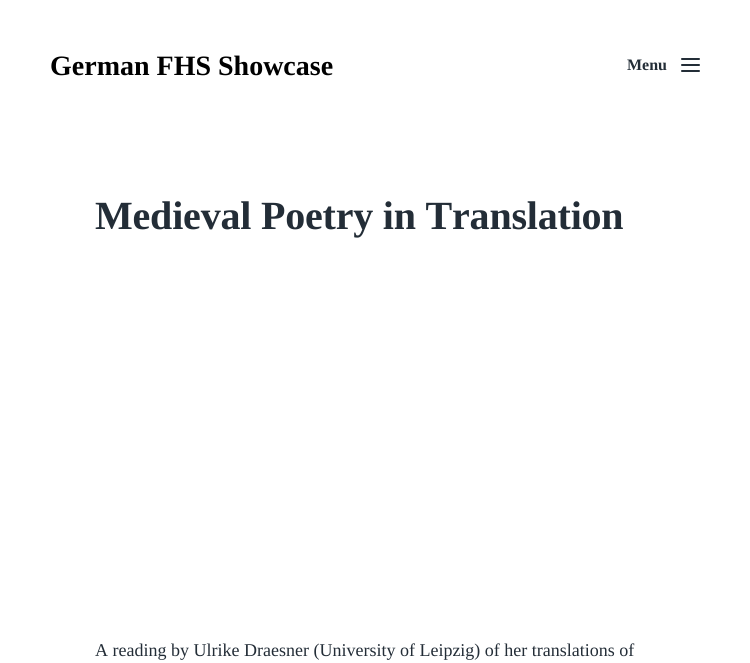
#include <cairo/cairo.h>
#include <math.h>
#include <stddef.h>

static cairo_t *cr;

static void rgb(unsigned color)
{
	cairo_set_source_rgb(cr, (color >> 16) / 255.0, (color >> 8 & 255) / 255.0, (color & 255) / 255.0);
}

static void tracked(double x, double y, const char *s, double letter, double word)
{
	cairo_move_to(cr, x, y);
	while (*s) {
		char ch[5] = {0};
		int n = 0;
		do ch[n++] = *s++; while ((*s & 0xC0) == 0x80);
		cairo_show_text(cr, ch);
		cairo_rel_move_to(cr, letter + word * (*ch == ' '), 0);
	}
}

static void rrect(double x, double y, double w, double h, double r)
{
	cairo_new_sub_path(cr);
	cairo_arc(cr, x + w - r, y + h - r, r, 0, M_PI / 2);
	cairo_arc(cr, x + r, y + h - r, r, M_PI / 2, M_PI);
	cairo_arc(cr, x + r, y + r, r, M_PI, 1.5 * M_PI);
	cairo_arc(cr, x + w - r, y + r, r, 1.5 * M_PI, 2 * M_PI);
	cairo_close_path(cr);
}

int main(void) {
	cairo_surface_t *surface = cairo_image_surface_create(CAIRO_FORMAT_RGB24, 750, 663);
	cr = cairo_create(surface);
	cairo_font_options_t *options = cairo_font_options_create();
	cairo_font_options_set_hint_metrics(options, CAIRO_HINT_METRICS_OFF);
	cairo_font_options_set_hint_style(options, CAIRO_HINT_STYLE_NONE);
	cairo_set_font_options(cr, options);
	cairo_set_miter_limit(cr, 4);
	rgb(0xffffff);
	cairo_paint(cr);
	rgb(0x232d37);
	rrect(681, 58, 19, 2, 1);
	cairo_fill(cr);
	rrect(681, 64, 19, 2, 1);
	cairo_fill(cr);
	rrect(681, 70, 19, 2, 1);
	cairo_fill(cr);
	cairo_select_font_face(cr, "Liberation Serif", CAIRO_FONT_SLANT_NORMAL, CAIRO_FONT_WEIGHT_BOLD);
	cairo_set_font_size(cr, 28);
	rgb(0x000000);
	cairo_move_to(cr, 50, 75);
	cairo_show_text(cr, "German FHS Showcase");
	cairo_set_font_size(cr, 16);
	rgb(0x232d37);
	cairo_move_to(cr, 627, 70);
	cairo_show_text(cr, "Menu");
	cairo_set_font_size(cr, 40);
	tracked(95, 229, "Medieval Poetry in Translation", -0.2, 0);
	cairo_select_font_face(cr, "Liberation Serif", CAIRO_FONT_SLANT_NORMAL, CAIRO_FONT_WEIGHT_NORMAL);
	cairo_set_font_size(cr, 18);
	cairo_move_to(cr, 95, 656);
	cairo_show_text(cr, "A reading by Ulrike Draesner (University of Leipzig) of her translations of");
	cairo_surface_write_to_png(surface, "page.png");
	cairo_font_options_destroy(options);
	cairo_destroy(cr);
	cairo_surface_destroy(surface);
	return 0;
}
